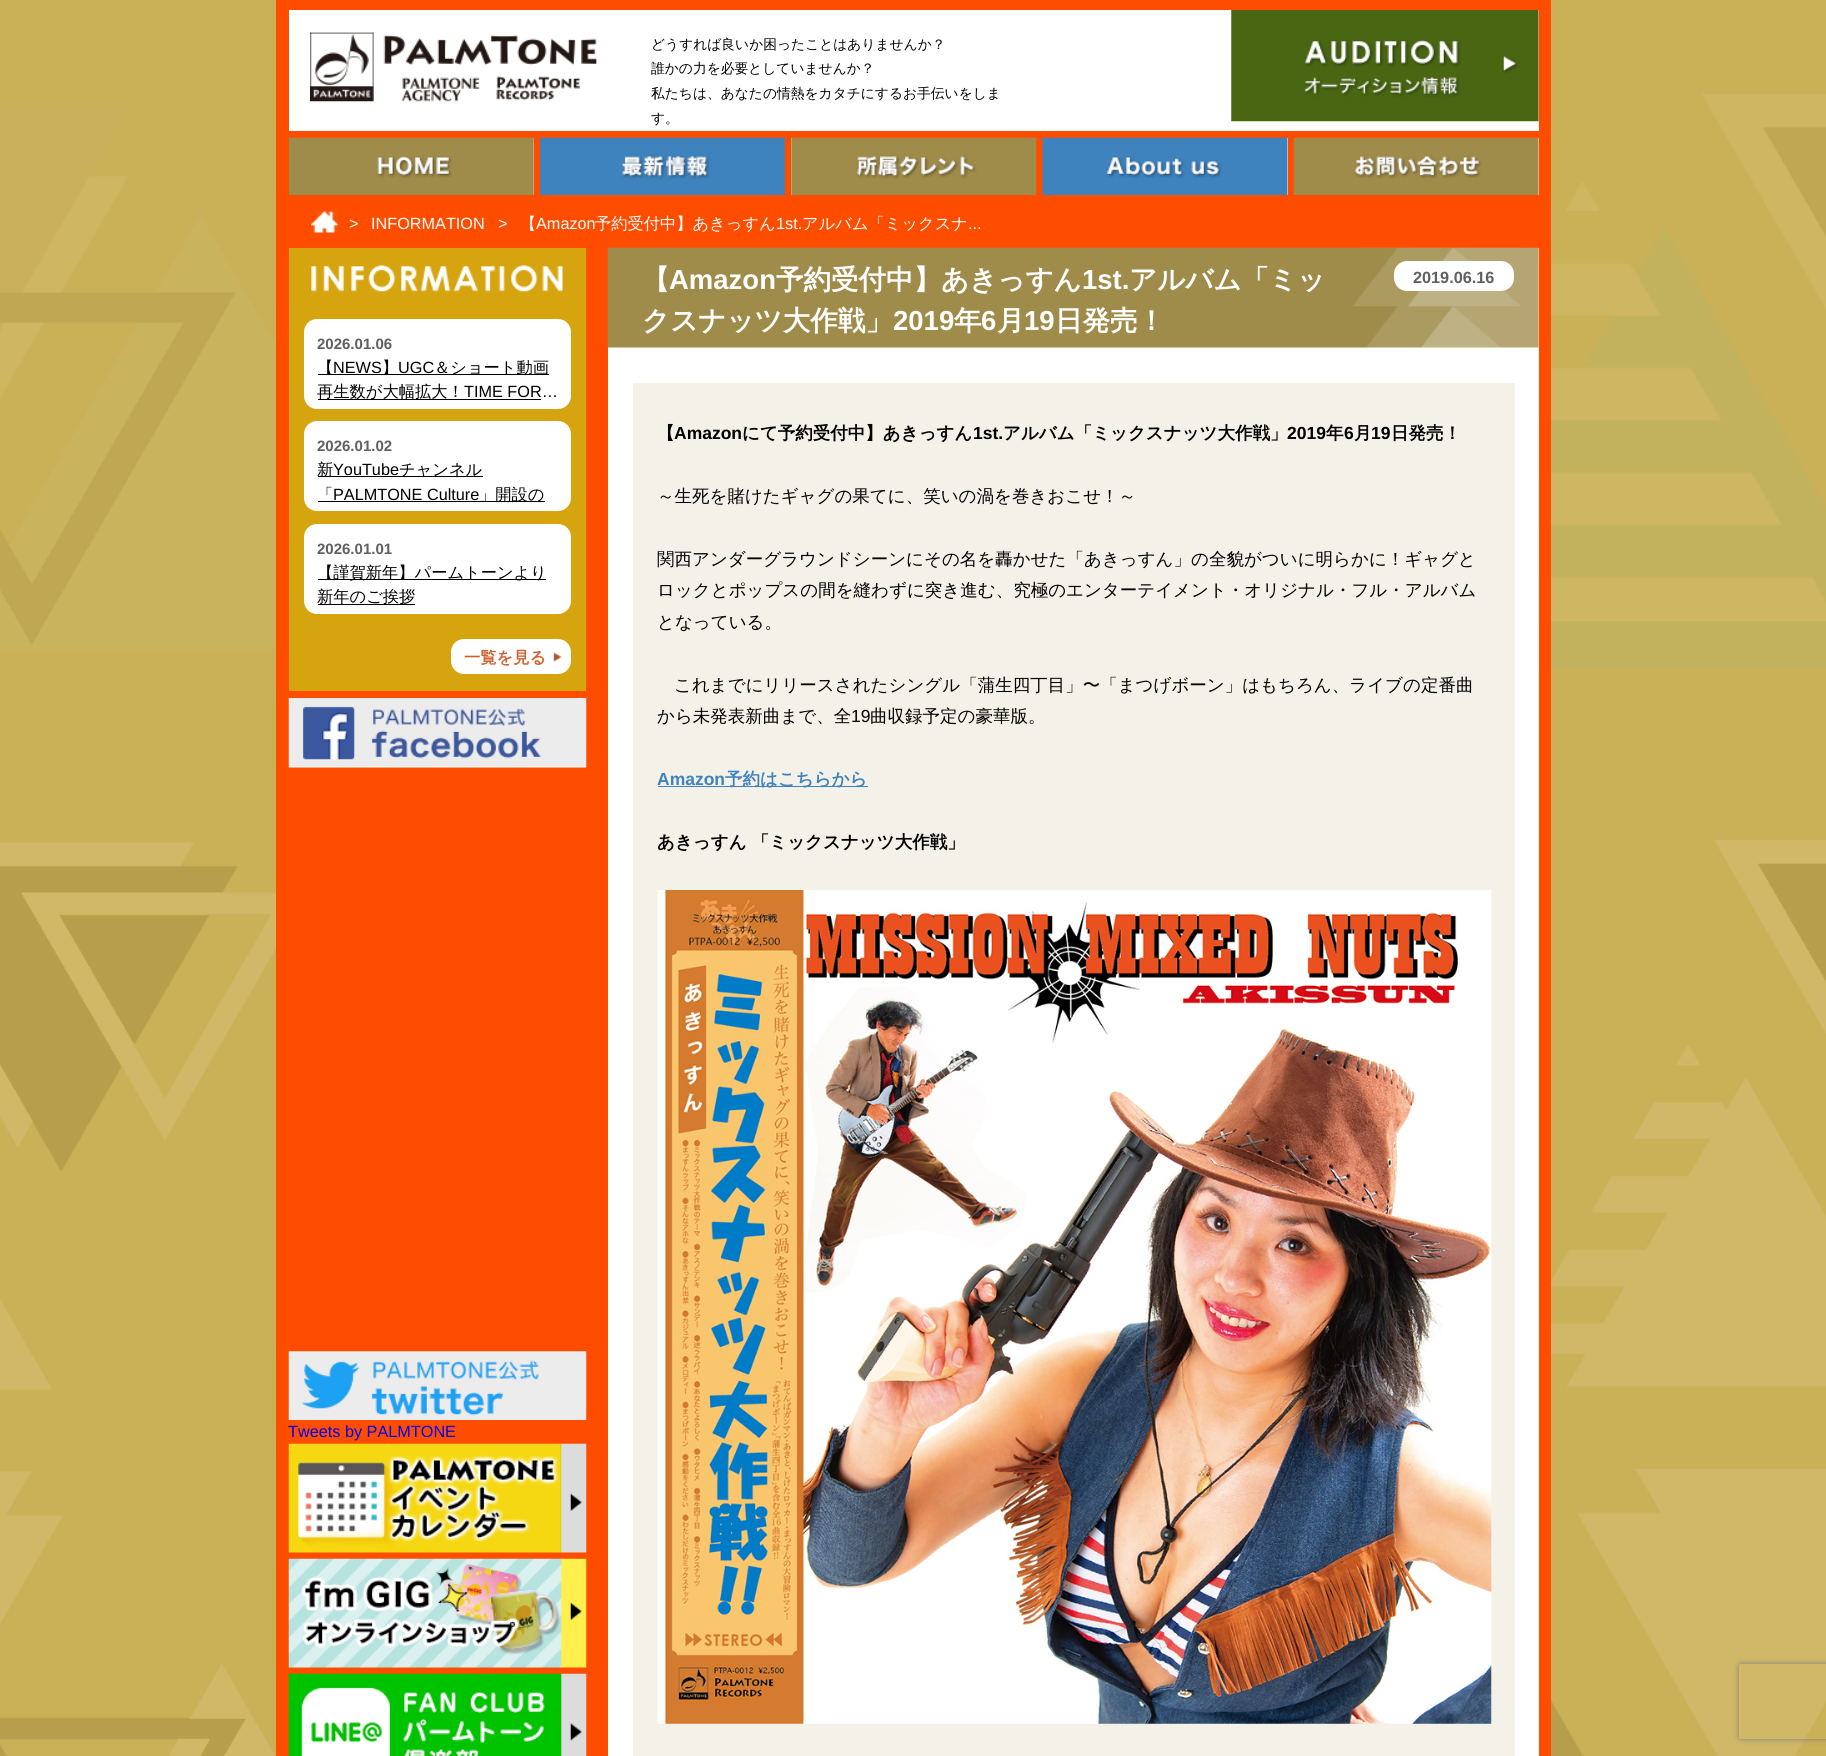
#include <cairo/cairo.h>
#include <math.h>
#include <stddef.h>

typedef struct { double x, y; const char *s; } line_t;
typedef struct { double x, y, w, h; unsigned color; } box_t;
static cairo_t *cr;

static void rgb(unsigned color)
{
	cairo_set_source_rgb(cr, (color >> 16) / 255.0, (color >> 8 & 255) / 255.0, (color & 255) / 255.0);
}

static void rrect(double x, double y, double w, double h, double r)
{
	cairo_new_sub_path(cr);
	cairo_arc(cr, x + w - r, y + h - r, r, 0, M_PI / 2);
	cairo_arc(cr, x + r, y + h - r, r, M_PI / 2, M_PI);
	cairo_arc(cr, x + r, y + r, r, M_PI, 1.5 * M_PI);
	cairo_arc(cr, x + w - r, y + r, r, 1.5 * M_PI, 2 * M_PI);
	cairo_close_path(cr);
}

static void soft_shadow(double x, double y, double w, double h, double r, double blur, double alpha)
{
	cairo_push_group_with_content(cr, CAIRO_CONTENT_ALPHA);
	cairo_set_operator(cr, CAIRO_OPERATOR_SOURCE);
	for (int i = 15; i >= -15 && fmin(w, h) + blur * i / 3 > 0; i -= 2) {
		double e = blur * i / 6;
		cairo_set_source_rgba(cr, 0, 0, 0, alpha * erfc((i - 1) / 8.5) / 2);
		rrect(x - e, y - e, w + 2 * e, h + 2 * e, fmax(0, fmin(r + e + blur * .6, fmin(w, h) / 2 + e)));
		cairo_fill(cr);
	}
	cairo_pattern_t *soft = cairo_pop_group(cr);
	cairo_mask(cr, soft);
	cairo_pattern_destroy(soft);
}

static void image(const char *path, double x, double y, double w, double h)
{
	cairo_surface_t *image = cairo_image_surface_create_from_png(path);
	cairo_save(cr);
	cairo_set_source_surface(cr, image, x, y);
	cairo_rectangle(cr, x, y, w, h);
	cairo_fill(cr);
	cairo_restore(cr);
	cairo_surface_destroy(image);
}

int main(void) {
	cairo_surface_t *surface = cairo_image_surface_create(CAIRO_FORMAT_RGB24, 1826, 1756);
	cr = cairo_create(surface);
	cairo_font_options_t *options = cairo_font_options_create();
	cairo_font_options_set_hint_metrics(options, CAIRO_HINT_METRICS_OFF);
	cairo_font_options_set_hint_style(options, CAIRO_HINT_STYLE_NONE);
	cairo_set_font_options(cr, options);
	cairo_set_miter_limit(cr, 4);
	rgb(0xffffff);
	cairo_paint(cr);
	image("img/1.png", 0, 0, 1826, 1756);
	{
		static const box_t items[] = {
			{289, 10, 1250, 185, 0xffffff},
			{289, 0, 1250, 10, 0xff4d00},
			{1539, 0, 12, 201, 0xff4d00},
			{276, 0, 13, 201, 0xff4d00},
		};
		for (size_t i = 0; i < sizeof items / sizeof *items; i++) {
			rgb(items[i].color);
			cairo_rectangle(cr, items[i].x, items[i].y, items[i].w, items[i].h);
			cairo_fill(cr);
		}
	}
	image("img/2.png", 310, 32, 287, 70);
	image("img/3.png", 1231, 10, 308, 112);
	{
		static const box_t items[] = {
			{289, 131, 1250, 7, 0xff4d00},
			{289, 195, 1250, 6, 0xff4d00},
			{534, 138, 6, 57, 0xff4d00},
		};
		for (size_t i = 0; i < sizeof items / sizeof *items; i++) {
			rgb(items[i].color);
			cairo_rectangle(cr, items[i].x, items[i].y, items[i].w, items[i].h);
			cairo_fill(cr);
		}
	}
	image("img/4.png", 288, 137, 246, 58);
	cairo_rectangle(cr, 785, 138, 6, 57);
	cairo_fill(cr);
	image("img/5.png", 540, 137, 245, 58);
	cairo_rectangle(cr, 1036, 138, 7, 57);
	cairo_fill(cr);
	image("img/6.png", 791, 137, 246, 58);
	cairo_rectangle(cr, 1288, 138, 6, 57);
	cairo_fill(cr);
	image("img/7.png", 1042, 137, 246, 58);
	image("img/8.png", 1293, 137, 246, 58);
	cairo_rectangle(cr, 276, 201, 1275, 47);
	cairo_fill(cr);
	image("img/9.png", 311, 211, 27, 22);
	cairo_rectangle(cr, 276, 248, 332, 1508);
	cairo_fill(cr);
	rgb(0xd6a40e);
	cairo_rectangle(cr, 289, 248, 297, 443);
	cairo_fill(cr);
	image("img/12.png", 288, 697, 299, 71);
	rgb(0xff4d00);
	cairo_rectangle(cr, 289, 697, 297, 1);
	cairo_fill(cr);
	image("img/10.png", 311, 265, 252, 27);
	rgb(0xffffff);
	rrect(304, 319, 267, 90, 13);
	cairo_fill(cr);
	rgb(0x000000);
	cairo_rectangle(cr, 318, 374, 231, 1);
	cairo_fill(cr);
	cairo_rectangle(cr, 318, 399, 223, 1);
	cairo_fill(cr);
	rgb(0xffffff);
	rrect(304, 421, 267, 90, 13);
	cairo_fill(cr);
	rgb(0x000000);
	cairo_rectangle(cr, 318, 476, 165, 1);
	cairo_fill(cr);
	cairo_rectangle(cr, 318, 501, 227, 1);
	cairo_fill(cr);
	rgb(0xffffff);
	rrect(304, 524, 267, 90, 13);
	cairo_fill(cr);
	rgb(0x000000);
	cairo_rectangle(cr, 318, 579, 228, 1);
	cairo_fill(cr);
	cairo_rectangle(cr, 318, 604, 97, 1);
	cairo_fill(cr);
	rgb(0xffffff);
	rrect(451, 639, 120, 35, 13);
	cairo_fill(cr);
	image("img/11.png", 553, 652, 9, 10);
	image("img/13.png", 288, 1351, 299, 69);
	image("img/14.png", 288, 1443, 299, 110);
	image("img/15.png", 288, 1558, 299, 110);
	image("img/16.png", 288, 1673, 299, 83);
	rgb(0xff4d00);
	cairo_rectangle(cr, 1539, 248, 12, 1508);
	cairo_fill(cr);
	rgb(0xffffff);
	cairo_rectangle(cr, 608, 248, 931, 1508);
	cairo_fill(cr);
	image("img/17.png", 607, 247, 932, 101);
	rrect(1394, 261, 120, 30, 13);
	cairo_fill(cr);
	rgb(0xf4f1e8);
	cairo_rectangle(cr, 633, 383, 882, 1373);
	cairo_fill(cr);
	rgb(0x3e83bd);
	cairo_rectangle(cr, 658, 786, 210, 1);
	cairo_fill(cr);
	image("img/18.png", 657, 890, 835, 834);
	cairo_save(cr);
	cairo_set_fill_rule(cr, CAIRO_FILL_RULE_EVEN_ODD);
	cairo_new_path(cr);
	cairo_move_to(cr, 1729, 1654);
	cairo_line_to(cr, 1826, 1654);
	cairo_line_to(cr, 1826, 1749);
	cairo_line_to(cr, 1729, 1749);
	cairo_close_path(cr);
	cairo_move_to(cr, 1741.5, 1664);
	cairo_line_to(cr, 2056.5, 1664);
	cairo_curve_to(cr, 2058, 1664, 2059, 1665, 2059, 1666.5);
	cairo_line_to(cr, 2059, 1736.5);
	cairo_curve_to(cr, 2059, 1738, 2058, 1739, 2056.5, 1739);
	cairo_line_to(cr, 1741.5, 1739);
	cairo_curve_to(cr, 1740, 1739, 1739, 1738, 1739, 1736.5);
	cairo_line_to(cr, 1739, 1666.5);
	cairo_curve_to(cr, 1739, 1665, 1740, 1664, 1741.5, 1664);
	cairo_close_path(cr);
	cairo_clip(cr);
	rgb(0x808080);
	soft_shadow(1739, 1664, 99, 75, 2.5, 3, 1);
	cairo_restore(cr);
	cairo_select_font_face(cr, "WenQuanYi Zen Hei Medium", CAIRO_FONT_SLANT_NORMAL, CAIRO_FONT_WEIGHT_NORMAL);
	cairo_set_font_size(cr, 13.75);
	rgb(0x000000);
	{
		static const line_t items[] = {
			{651, 49, "どうすれば良いか困ったことはありませんか？"},
			{651, 73, "誰かの力を必要としていませんか？"},
			{651, 98, "私たちは、あなたの情熱をカタチにするお手伝いをしま"},
			{651, 123, "す。"},
		};
		for (size_t i = 0; i < sizeof items / sizeof *items; i++) {
			cairo_move_to(cr, items[i].x, items[i].y);
			cairo_show_text(cr, items[i].s);
		}
	}
	cairo_select_font_face(cr, "Liberation Sans", CAIRO_FONT_SLANT_NORMAL, CAIRO_FONT_WEIGHT_NORMAL);
	cairo_set_font_size(cr, 16.25);
	rgb(0xffffff);
	{
		static const line_t items[] = {
			{349, 229, ">"},
			{371, 229, "INFORMATION"},
			{498, 229, ">"},
		};
		for (size_t i = 0; i < sizeof items / sizeof *items; i++) {
			cairo_move_to(cr, items[i].x, items[i].y);
			cairo_show_text(cr, items[i].s);
		}
	}
	cairo_select_font_face(cr, "WenQuanYi Zen Hei Medium", CAIRO_FONT_SLANT_NORMAL, CAIRO_FONT_WEIGHT_NORMAL);
	cairo_move_to(cr, 520, 229);
	cairo_show_text(cr, "【");
	cairo_select_font_face(cr, "Liberation Sans", CAIRO_FONT_SLANT_NORMAL, CAIRO_FONT_WEIGHT_NORMAL);
	cairo_move_to(cr, 536, 229);
	cairo_show_text(cr, "Amazon");
	cairo_select_font_face(cr, "WenQuanYi Zen Hei Medium", CAIRO_FONT_SLANT_NORMAL, CAIRO_FONT_WEIGHT_NORMAL);
	cairo_move_to(cr, 595, 229);
	cairo_show_text(cr, "予約受付中】あきっすん");
	cairo_select_font_face(cr, "Liberation Sans", CAIRO_FONT_SLANT_NORMAL, CAIRO_FONT_WEIGHT_NORMAL);
	cairo_move_to(cr, 776, 229);
	cairo_show_text(cr, "1st.");
	cairo_select_font_face(cr, "WenQuanYi Zen Hei Medium", CAIRO_FONT_SLANT_NORMAL, CAIRO_FONT_WEIGHT_NORMAL);
	cairo_move_to(cr, 802, 229);
	cairo_show_text(cr, "アルバム「ミックスナ");
	cairo_select_font_face(cr, "Liberation Sans", CAIRO_FONT_SLANT_NORMAL, CAIRO_FONT_WEIGHT_NORMAL);
	cairo_move_to(cr, 968, 229);
	cairo_show_text(cr, "...");
	cairo_select_font_face(cr, "Liberation Sans", CAIRO_FONT_SLANT_NORMAL, CAIRO_FONT_WEIGHT_BOLD);
	cairo_set_font_size(cr, 15);
	rgb(0x606060);
	cairo_move_to(cr, 317, 349);
	cairo_show_text(cr, "2026.01.06");
	cairo_select_font_face(cr, "WenQuanYi Zen Hei Medium", CAIRO_FONT_SLANT_NORMAL, CAIRO_FONT_WEIGHT_NORMAL);
	cairo_set_font_size(cr, 16.25);
	rgb(0x000000);
	cairo_move_to(cr, 317, 373);
	cairo_show_text(cr, "【");
	cairo_select_font_face(cr, "Liberation Sans", CAIRO_FONT_SLANT_NORMAL, CAIRO_FONT_WEIGHT_NORMAL);
	cairo_move_to(cr, 333, 373);
	cairo_show_text(cr, "NEWS");
	cairo_select_font_face(cr, "WenQuanYi Zen Hei Medium", CAIRO_FONT_SLANT_NORMAL, CAIRO_FONT_WEIGHT_NORMAL);
	cairo_move_to(cr, 382, 373);
	cairo_show_text(cr, "】");
	cairo_select_font_face(cr, "Liberation Sans", CAIRO_FONT_SLANT_NORMAL, CAIRO_FONT_WEIGHT_NORMAL);
	cairo_move_to(cr, 398, 373);
	cairo_show_text(cr, "UGC");
	cairo_select_font_face(cr, "WenQuanYi Zen Hei Medium", CAIRO_FONT_SLANT_NORMAL, CAIRO_FONT_WEIGHT_NORMAL);
	cairo_move_to(cr, 434, 373);
	cairo_show_text(cr, "＆ショート動画");
	cairo_move_to(cr, 317, 397);
	cairo_show_text(cr, "再生数が大幅拡大！");
	cairo_select_font_face(cr, "Liberation Sans", CAIRO_FONT_SLANT_NORMAL, CAIRO_FONT_WEIGHT_NORMAL);
	cairo_move_to(cr, 464, 397);
	cairo_show_text(cr, "TIME FOR…");
	cairo_select_font_face(cr, "Liberation Sans", CAIRO_FONT_SLANT_NORMAL, CAIRO_FONT_WEIGHT_BOLD);
	cairo_set_font_size(cr, 15);
	rgb(0x606060);
	cairo_move_to(cr, 317, 451);
	cairo_show_text(cr, "2026.01.02");
	cairo_select_font_face(cr, "WenQuanYi Zen Hei Medium", CAIRO_FONT_SLANT_NORMAL, CAIRO_FONT_WEIGHT_NORMAL);
	cairo_set_font_size(cr, 16.25);
	rgb(0x000000);
	cairo_move_to(cr, 317, 475);
	cairo_show_text(cr, "新");
	cairo_select_font_face(cr, "Liberation Sans", CAIRO_FONT_SLANT_NORMAL, CAIRO_FONT_WEIGHT_NORMAL);
	cairo_move_to(cr, 333, 475);
	cairo_show_text(cr, "YouTube");
	cairo_select_font_face(cr, "WenQuanYi Zen Hei Medium", CAIRO_FONT_SLANT_NORMAL, CAIRO_FONT_WEIGHT_NORMAL);
	cairo_move_to(cr, 399, 475);
	cairo_show_text(cr, "チャンネル");
	cairo_move_to(cr, 317, 500);
	cairo_show_text(cr, "「");
	cairo_select_font_face(cr, "Liberation Sans", CAIRO_FONT_SLANT_NORMAL, CAIRO_FONT_WEIGHT_NORMAL);
	cairo_move_to(cr, 333, 500);
	cairo_show_text(cr, "PALMTONE Culture");
	cairo_select_font_face(cr, "WenQuanYi Zen Hei Medium", CAIRO_FONT_SLANT_NORMAL, CAIRO_FONT_WEIGHT_NORMAL);
	cairo_move_to(cr, 479, 500);
	cairo_show_text(cr, "」開設の");
	cairo_select_font_face(cr, "Liberation Sans", CAIRO_FONT_SLANT_NORMAL, CAIRO_FONT_WEIGHT_BOLD);
	cairo_set_font_size(cr, 15);
	rgb(0x606060);
	cairo_move_to(cr, 317, 554);
	cairo_show_text(cr, "2026.01.01");
	cairo_select_font_face(cr, "WenQuanYi Zen Hei Medium", CAIRO_FONT_SLANT_NORMAL, CAIRO_FONT_WEIGHT_NORMAL);
	cairo_set_font_size(cr, 16.25);
	rgb(0x000000);
	cairo_move_to(cr, 317, 578);
	cairo_show_text(cr, "【謹賀新年】パームトーンより");
	cairo_move_to(cr, 317, 602);
	cairo_show_text(cr, "新年のご挨拶");
	cairo_select_font_face(cr, "WenQuanYi Zen Hei", CAIRO_FONT_SLANT_NORMAL, CAIRO_FONT_WEIGHT_BOLD);
	rgb(0xcf6130);
	cairo_move_to(cr, 464, 663);
	cairo_show_text(cr, "一覧を見る");
	cairo_select_font_face(cr, "Liberation Sans", CAIRO_FONT_SLANT_NORMAL, CAIRO_FONT_WEIGHT_NORMAL);
	rgb(0x0000ee);
	cairo_move_to(cr, 288, 1437);
	cairo_show_text(cr, "Tweets by PALMTONE");
	cairo_select_font_face(cr, "WenQuanYi Zen Hei", CAIRO_FONT_SLANT_NORMAL, CAIRO_FONT_WEIGHT_BOLD);
	cairo_set_font_size(cr, 27.5);
	rgb(0xffffff);
	cairo_move_to(cr, 642, 289);
	cairo_show_text(cr, "【");
	cairo_select_font_face(cr, "Liberation Sans", CAIRO_FONT_SLANT_NORMAL, CAIRO_FONT_WEIGHT_BOLD);
	cairo_move_to(cr, 669, 289);
	cairo_show_text(cr, "Amazon");
	cairo_select_font_face(cr, "WenQuanYi Zen Hei", CAIRO_FONT_SLANT_NORMAL, CAIRO_FONT_WEIGHT_BOLD);
	cairo_move_to(cr, 776, 289);
	cairo_show_text(cr, "予約受付中】あきっすん");
	cairo_select_font_face(cr, "Liberation Sans", CAIRO_FONT_SLANT_NORMAL, CAIRO_FONT_WEIGHT_BOLD);
	cairo_move_to(cr, 1082, 289);
	cairo_show_text(cr, "1st.");
	cairo_select_font_face(cr, "WenQuanYi Zen Hei", CAIRO_FONT_SLANT_NORMAL, CAIRO_FONT_WEIGHT_BOLD);
	cairo_move_to(cr, 1129, 289);
	cairo_show_text(cr, "アルバム「ミッ");
	cairo_select_font_face(cr, "Liberation Sans", CAIRO_FONT_SLANT_NORMAL, CAIRO_FONT_WEIGHT_BOLD);
	cairo_set_font_size(cr, 16.25);
	rgb(0x606060);
	cairo_move_to(cr, 1413, 283);
	cairo_show_text(cr, "2019.06.16");
	cairo_select_font_face(cr, "WenQuanYi Zen Hei", CAIRO_FONT_SLANT_NORMAL, CAIRO_FONT_WEIGHT_BOLD);
	cairo_set_font_size(cr, 27.5);
	rgb(0xffffff);
	cairo_move_to(cr, 642, 330);
	cairo_show_text(cr, "クスナッツ大作戦」");
	cairo_select_font_face(cr, "Liberation Sans", CAIRO_FONT_SLANT_NORMAL, CAIRO_FONT_WEIGHT_BOLD);
	cairo_move_to(cr, 893, 330);
	cairo_show_text(cr, "2019");
	cairo_select_font_face(cr, "WenQuanYi Zen Hei", CAIRO_FONT_SLANT_NORMAL, CAIRO_FONT_WEIGHT_BOLD);
	cairo_move_to(cr, 954, 330);
	cairo_show_text(cr, "年");
	cairo_select_font_face(cr, "Liberation Sans", CAIRO_FONT_SLANT_NORMAL, CAIRO_FONT_WEIGHT_BOLD);
	cairo_move_to(cr, 981, 330);
	cairo_show_text(cr, "6");
	cairo_select_font_face(cr, "WenQuanYi Zen Hei", CAIRO_FONT_SLANT_NORMAL, CAIRO_FONT_WEIGHT_BOLD);
	cairo_move_to(cr, 997, 330);
	cairo_show_text(cr, "月");
	cairo_select_font_face(cr, "Liberation Sans", CAIRO_FONT_SLANT_NORMAL, CAIRO_FONT_WEIGHT_BOLD);
	cairo_move_to(cr, 1024, 330);
	cairo_show_text(cr, "19");
	cairo_select_font_face(cr, "WenQuanYi Zen Hei", CAIRO_FONT_SLANT_NORMAL, CAIRO_FONT_WEIGHT_BOLD);
	cairo_move_to(cr, 1055, 330);
	cairo_show_text(cr, "日発売！");
	cairo_set_font_size(cr, 17.5);
	rgb(0x000000);
	cairo_move_to(cr, 657, 439);
	cairo_show_text(cr, "【");
	cairo_select_font_face(cr, "Liberation Sans", CAIRO_FONT_SLANT_NORMAL, CAIRO_FONT_WEIGHT_BOLD);
	cairo_move_to(cr, 674, 439);
	cairo_show_text(cr, "Amazon");
	cairo_select_font_face(cr, "WenQuanYi Zen Hei", CAIRO_FONT_SLANT_NORMAL, CAIRO_FONT_WEIGHT_BOLD);
	cairo_move_to(cr, 742, 439);
	cairo_show_text(cr, "にて予約受付中】あきっすん");
	cairo_select_font_face(cr, "Liberation Sans", CAIRO_FONT_SLANT_NORMAL, CAIRO_FONT_WEIGHT_BOLD);
	cairo_move_to(cr, 973, 439);
	cairo_show_text(cr, "1st.");
	cairo_select_font_face(cr, "WenQuanYi Zen Hei", CAIRO_FONT_SLANT_NORMAL, CAIRO_FONT_WEIGHT_BOLD);
	cairo_move_to(cr, 1003, 439);
	cairo_show_text(cr, "アルバム「ミックスナッツ大作戦」");
	cairo_select_font_face(cr, "Liberation Sans", CAIRO_FONT_SLANT_NORMAL, CAIRO_FONT_WEIGHT_BOLD);
	cairo_move_to(cr, 1287, 439);
	cairo_show_text(cr, "2019");
	cairo_select_font_face(cr, "WenQuanYi Zen Hei", CAIRO_FONT_SLANT_NORMAL, CAIRO_FONT_WEIGHT_BOLD);
	cairo_move_to(cr, 1326, 439);
	cairo_show_text(cr, "年");
	cairo_select_font_face(cr, "Liberation Sans", CAIRO_FONT_SLANT_NORMAL, CAIRO_FONT_WEIGHT_BOLD);
	cairo_move_to(cr, 1344, 439);
	cairo_show_text(cr, "6");
	cairo_select_font_face(cr, "WenQuanYi Zen Hei", CAIRO_FONT_SLANT_NORMAL, CAIRO_FONT_WEIGHT_BOLD);
	cairo_move_to(cr, 1354, 439);
	cairo_show_text(cr, "月");
	cairo_select_font_face(cr, "Liberation Sans", CAIRO_FONT_SLANT_NORMAL, CAIRO_FONT_WEIGHT_BOLD);
	cairo_move_to(cr, 1371, 439);
	cairo_show_text(cr, "19");
	cairo_select_font_face(cr, "WenQuanYi Zen Hei", CAIRO_FONT_SLANT_NORMAL, CAIRO_FONT_WEIGHT_BOLD);
	cairo_move_to(cr, 1391, 439);
	cairo_show_text(cr, "日発売！");
	cairo_select_font_face(cr, "WenQuanYi Zen Hei Medium", CAIRO_FONT_SLANT_NORMAL, CAIRO_FONT_WEIGHT_NORMAL);
	{
		static const line_t items[] = {
			{657, 502, "～生死を賭けたギャグの果てに、笑いの渦を巻きおこせ！～"},
			{657, 565, "関西アンダーグラウンドシーンにその名を轟かせた「あきっすん」の全貌がついに明らかに！ギャグと"},
			{657, 596, "ロックとポップスの間を縫わずに突き進む、究極のエンターテイメント・オリジナル・フル・アルバム"},
			{657, 628, "となっている。"},
			{674, 691, "これまでにリリースされたシングル「蒲生四丁目」〜「まつげボーン」はもちろん、ライブの定番曲"},
			{657, 722, "から未発表新曲まで、全"},
		};
		for (size_t i = 0; i < sizeof items / sizeof *items; i++) {
			cairo_move_to(cr, items[i].x, items[i].y);
			cairo_show_text(cr, items[i].s);
		}
	}
	cairo_select_font_face(cr, "Liberation Sans", CAIRO_FONT_SLANT_NORMAL, CAIRO_FONT_WEIGHT_NORMAL);
	cairo_move_to(cr, 851, 722);
	cairo_show_text(cr, "19");
	cairo_select_font_face(cr, "WenQuanYi Zen Hei Medium", CAIRO_FONT_SLANT_NORMAL, CAIRO_FONT_WEIGHT_NORMAL);
	cairo_move_to(cr, 870, 722);
	cairo_show_text(cr, "曲収録予定の豪華版。");
	cairo_select_font_face(cr, "Liberation Sans", CAIRO_FONT_SLANT_NORMAL, CAIRO_FONT_WEIGHT_BOLD);
	rgb(0x3e83bd);
	cairo_move_to(cr, 657, 785);
	cairo_show_text(cr, "Amazon");
	cairo_select_font_face(cr, "WenQuanYi Zen Hei", CAIRO_FONT_SLANT_NORMAL, CAIRO_FONT_WEIGHT_BOLD);
	cairo_move_to(cr, 725, 785);
	cairo_show_text(cr, "予約はこちらから");
	rgb(0x000000);
	cairo_move_to(cr, 657, 848);
	cairo_show_text(cr, "あきっすん 「ミックスナッツ大作戦」");
	cairo_surface_write_to_png(surface, "page.png");
	cairo_font_options_destroy(options);
	cairo_destroy(cr);
	cairo_surface_destroy(surface);
	return 0;
}
